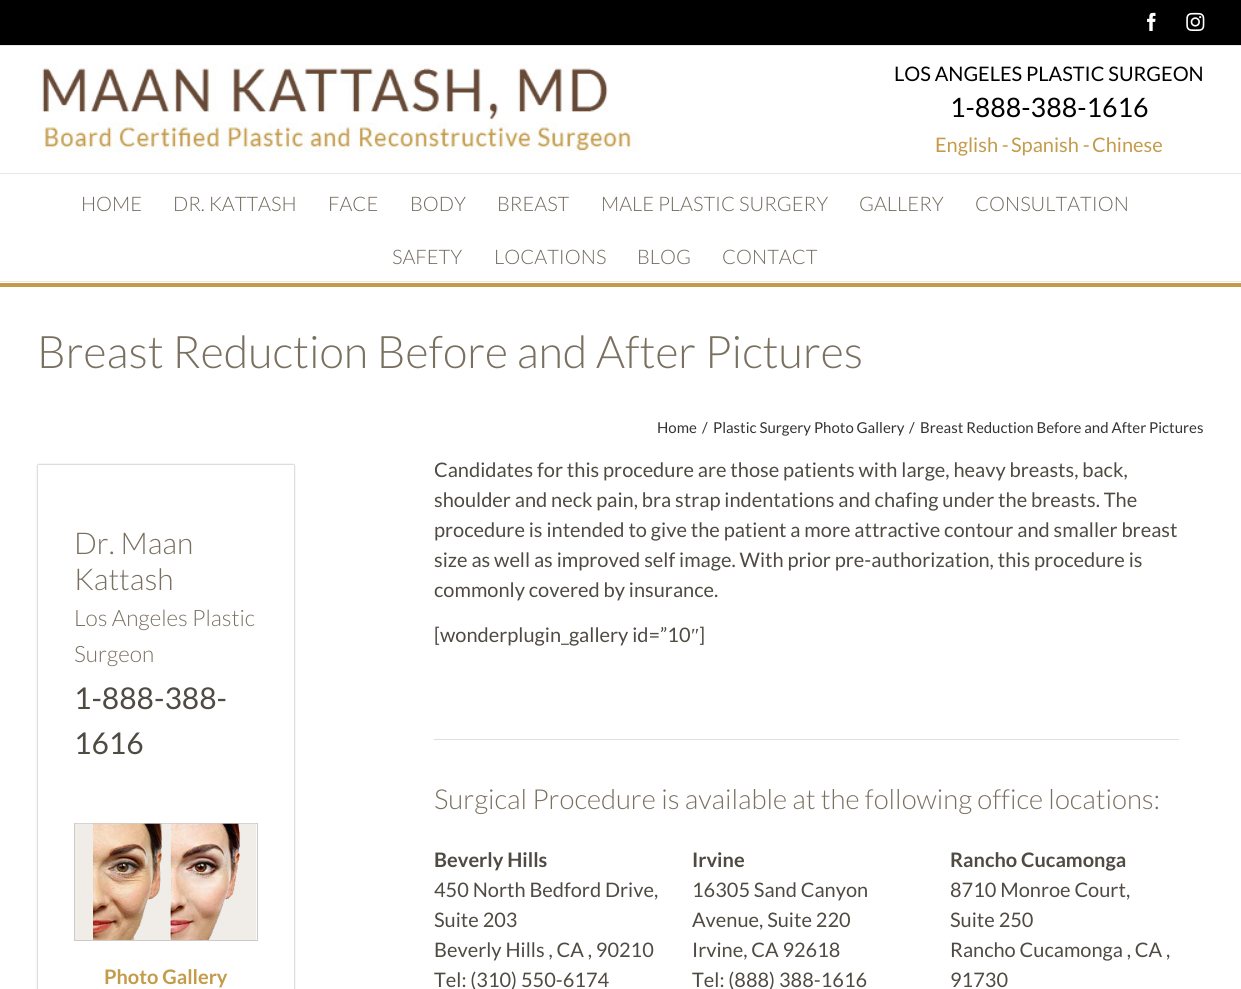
#include <cairo/cairo.h>
#include <math.h>
#include <stddef.h>

typedef struct { double x, y; const char *s; } line_t;
static cairo_t *cr;

static void rgb(unsigned color)
{
	cairo_set_source_rgb(cr, (color >> 16) / 255.0, (color >> 8 & 255) / 255.0, (color & 255) / 255.0);
}

static void rrect(double x, double y, double w, double h, double r)
{
	cairo_new_sub_path(cr);
	cairo_arc(cr, x + w - r, y + h - r, r, 0, M_PI / 2);
	cairo_arc(cr, x + r, y + h - r, r, M_PI / 2, M_PI);
	cairo_arc(cr, x + r, y + r, r, M_PI, 1.5 * M_PI);
	cairo_arc(cr, x + w - r, y + r, r, 1.5 * M_PI, 2 * M_PI);
	cairo_close_path(cr);
}

static void soft_shadow(double x, double y, double w, double h, double r, double blur, double alpha)
{
	cairo_push_group_with_content(cr, CAIRO_CONTENT_ALPHA);
	cairo_set_operator(cr, CAIRO_OPERATOR_SOURCE);
	for (int i = 15; i >= -15 && fmin(w, h) + blur * i / 3 > 0; i -= 2) {
		double e = blur * i / 6;
		cairo_set_source_rgba(cr, 0, 0, 0, alpha * erfc((i - 1) / 8.5) / 2);
		rrect(x - e, y - e, w + 2 * e, h + 2 * e, fmax(0, fmin(r + e + blur * .6, fmin(w, h) / 2 + e)));
		cairo_fill(cr);
	}
	cairo_pattern_t *soft = cairo_pop_group(cr);
	cairo_mask(cr, soft);
	cairo_pattern_destroy(soft);
}

static void image(const char *path, double x, double y, double w, double h)
{
	cairo_surface_t *image = cairo_image_surface_create_from_png(path);
	cairo_save(cr);
	cairo_set_source_surface(cr, image, x, y);
	cairo_rectangle(cr, x, y, w, h);
	cairo_fill(cr);
	cairo_restore(cr);
	cairo_surface_destroy(image);
}

int main(void) {
	cairo_surface_t *surface = cairo_image_surface_create(CAIRO_FORMAT_RGB24, 1241, 989);
	cr = cairo_create(surface);
	cairo_font_options_t *options = cairo_font_options_create();
	cairo_font_options_set_hint_metrics(options, CAIRO_HINT_METRICS_OFF);
	cairo_font_options_set_hint_style(options, CAIRO_HINT_STYLE_NONE);
	cairo_set_font_options(cr, options);
	cairo_set_miter_limit(cr, 4);
	rgb(0xffffff);
	cairo_paint(cr);
	rgb(0x000000);
	cairo_rectangle(cr, 0, 0, 1241, 45);
	cairo_fill(cr);
	rgb(0xe7e7e7);
	cairo_rectangle(cr, 0, 45, 1241, 1);
	cairo_fill(cr);
	image("img/1.png", 1147, 12, 9, 19);
	image("img/2.png", 1186, 12, 19, 19);
	cairo_rectangle(cr, 0, 173, 1241, 1);
	cairo_fill(cr);
	image("img/3.png", 37, 63, 601, 90);
	cairo_rectangle(cr, 0, 281, 1241, 1);
	cairo_fill(cr);
	rgb(0xc39b4b);
	cairo_rectangle(cr, 0, 283, 1241, 4);
	cairo_fill(cr);
	cairo_save(cr);
	cairo_set_fill_rule(cr, CAIRO_FILL_RULE_EVEN_ODD);
	cairo_new_path(cr);
	cairo_move_to(cr, 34, 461);
	cairo_line_to(cr, 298, 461);
	cairo_line_to(cr, 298, 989);
	cairo_line_to(cr, 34, 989);
	cairo_close_path(cr);
	cairo_move_to(cr, 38, 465);
	cairo_line_to(cr, 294, 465);
	cairo_line_to(cr, 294, 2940);
	cairo_line_to(cr, 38, 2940);
	cairo_close_path(cr);
	cairo_clip(cr);
	rgb(0x999999);
	soft_shadow(38, 465, 256, 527, 0, 1, 1);
	cairo_restore(cr);
	cairo_rectangle(cr, 44.5, 471.5, 243, 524);
	rgb(0xffffff);
	cairo_set_line_width(cr, 13);
	cairo_stroke(cr);
	cairo_rectangle(cr, 74.5, 823.5, 183, 117);
	rgb(0xcccbca);
	cairo_set_line_width(cr, 1);
	cairo_stroke(cr);
	image("img/4.png", 75, 823, 182, 117);
	rgb(0xe0dede);
	cairo_rectangle(cr, 434, 739, 745, 1);
	cairo_fill(cr);
	cairo_select_font_face(cr, "Lato", CAIRO_FONT_SLANT_NORMAL, CAIRO_FONT_WEIGHT_NORMAL);
	cairo_set_font_size(cr, 20);
	rgb(0x000000);
	cairo_move_to(cr, 894, 81);
	cairo_show_text(cr, "LOS ANGELES PLASTIC SURGEON");
	cairo_set_font_size(cr, 26.75);
	cairo_move_to(cr, 950, 117);
	cairo_show_text(cr, "1-888-388-1616");
	cairo_set_font_size(cr, 20);
	rgb(0xc39b4b);
	{
		static const line_t items[] = {
			{935, 152, "English -"},
			{1011, 152, "Spanish -"},
			{1092, 152, "Chinese"},
		};
		for (size_t i = 0; i < sizeof items / sizeof *items; i++) {
			cairo_move_to(cr, items[i].x, items[i].y);
			cairo_show_text(cr, items[i].s);
		}
	}
	cairo_select_font_face(cr, "Lato Light", CAIRO_FONT_SLANT_NORMAL, CAIRO_FONT_WEIGHT_NORMAL);
	rgb(0x70695d);
	{
		static const line_t items[] = {
			{81, 211, "HOME"},
			{173, 211, "DR. KATTASH"},
			{328, 211, "FACE"},
			{410, 211, "BODY"},
			{497, 211, "BREAST"},
			{601, 211, "MALE PLASTIC SURGERY"},
			{859, 211, "GALLERY"},
			{975, 211, "CONSULTATION"},
			{392, 264, "SAFETY"},
			{494, 264, "LOCATIONS"},
			{637, 264, "BLOG"},
			{722, 264, "CONTACT"},
		};
		for (size_t i = 0; i < sizeof items / sizeof *items; i++) {
			cairo_move_to(cr, items[i].x, items[i].y);
			cairo_show_text(cr, items[i].s);
		}
	}
	cairo_set_font_size(cr, 44.9);
	rgb(0x797060);
	cairo_move_to(cr, 37, 368);
	cairo_show_text(cr, "Breast Reduction Before and After Pictures");
	cairo_select_font_face(cr, "Lato", CAIRO_FONT_SLANT_NORMAL, CAIRO_FONT_WEIGHT_NORMAL);
	cairo_set_font_size(cr, 15);
	rgb(0x333333);
	{
		static const line_t items[] = {
			{657, 433, "Home"},
			{702, 433, "/"},
			{713, 433, "Plastic Surgery Photo Gallery"},
			{909, 433, "/"},
			{920, 433, "Breast Reduction Before and After Pictures"},
		};
		for (size_t i = 0; i < sizeof items / sizeof *items; i++) {
			cairo_move_to(cr, items[i].x, items[i].y);
			cairo_show_text(cr, items[i].s);
		}
	}
	cairo_select_font_face(cr, "Lato Light", CAIRO_FONT_SLANT_NORMAL, CAIRO_FONT_WEIGHT_NORMAL);
	cairo_set_font_size(cr, 30);
	rgb(0x797060);
	cairo_move_to(cr, 74, 554);
	cairo_show_text(cr, "Dr. Maan");
	cairo_move_to(cr, 74, 590);
	cairo_show_text(cr, "Kattash");
	cairo_set_font_size(cr, 22.5);
	cairo_move_to(cr, 74, 626);
	cairo_show_text(cr, "Los Angeles Plastic");
	cairo_move_to(cr, 74, 662);
	cairo_show_text(cr, "Surgeon");
	cairo_select_font_face(cr, "Lato", CAIRO_FONT_SLANT_NORMAL, CAIRO_FONT_WEIGHT_NORMAL);
	cairo_set_font_size(cr, 30);
	rgb(0x4f4b43);
	cairo_move_to(cr, 74, 709);
	cairo_show_text(cr, "1-888-388-");
	cairo_move_to(cr, 74, 754);
	cairo_show_text(cr, "1616");
	cairo_select_font_face(cr, "Lato", CAIRO_FONT_SLANT_NORMAL, CAIRO_FONT_WEIGHT_BOLD);
	cairo_set_font_size(cr, 20);
	rgb(0xc39b4b);
	cairo_move_to(cr, 104, 984);
	cairo_show_text(cr, "Photo Gallery");
	cairo_select_font_face(cr, "Lato", CAIRO_FONT_SLANT_NORMAL, CAIRO_FONT_WEIGHT_NORMAL);
	rgb(0x4f4b43);
	{
		static const line_t items[] = {
			{434, 477, "Candidates for this procedure are those patients with large, heavy breasts, back,"},
			{434, 507, "shoulder and neck pain, bra strap indentations and chafing under the breasts. The"},
			{434, 537, "procedure is intended to give the patient a more attractive contour and smaller breast"},
			{434, 567, "size as well as improved self image. With prior pre-authorization, this procedure is"},
			{434, 597, "commonly covered by insurance."},
			{434, 642, "[wonderplugin_gallery id=”10"},
		};
		for (size_t i = 0; i < sizeof items / sizeof *items; i++) {
			cairo_move_to(cr, items[i].x, items[i].y);
			cairo_show_text(cr, items[i].s);
		}
	}
	cairo_select_font_face(cr, "Liberation Serif", CAIRO_FONT_SLANT_NORMAL, CAIRO_FONT_WEIGHT_NORMAL);
	cairo_move_to(cr, 691, 642);
	cairo_show_text(cr, "″");
	cairo_select_font_face(cr, "Lato", CAIRO_FONT_SLANT_NORMAL, CAIRO_FONT_WEIGHT_NORMAL);
	cairo_move_to(cr, 699, 642);
	cairo_show_text(cr, "]");
	cairo_select_font_face(cr, "Lato Light", CAIRO_FONT_SLANT_NORMAL, CAIRO_FONT_WEIGHT_NORMAL);
	cairo_set_font_size(cr, 27.5);
	rgb(0x797060);
	cairo_move_to(cr, 434, 809);
	cairo_show_text(cr, "Surgical Procedure is available at the following office locations:");
	cairo_select_font_face(cr, "Lato", CAIRO_FONT_SLANT_NORMAL, CAIRO_FONT_WEIGHT_BOLD);
	cairo_set_font_size(cr, 20);
	rgb(0x4f4b43);
	cairo_move_to(cr, 434, 867);
	cairo_show_text(cr, "Beverly Hills");
	cairo_select_font_face(cr, "Lato", CAIRO_FONT_SLANT_NORMAL, CAIRO_FONT_WEIGHT_NORMAL);
	{
		static const line_t items[] = {
			{434, 897, "450 North Bedford Drive,"},
			{434, 927, "Suite 203"},
			{434, 957, "Beverly Hills , CA , 90210"},
			{434, 987, "Tel: (310) 550-6174"},
		};
		for (size_t i = 0; i < sizeof items / sizeof *items; i++) {
			cairo_move_to(cr, items[i].x, items[i].y);
			cairo_show_text(cr, items[i].s);
		}
	}
	cairo_select_font_face(cr, "Lato", CAIRO_FONT_SLANT_NORMAL, CAIRO_FONT_WEIGHT_BOLD);
	cairo_move_to(cr, 692, 867);
	cairo_show_text(cr, "Irvine");
	cairo_select_font_face(cr, "Lato", CAIRO_FONT_SLANT_NORMAL, CAIRO_FONT_WEIGHT_NORMAL);
	{
		static const line_t items[] = {
			{692, 897, "16305 Sand Canyon"},
			{692, 927, "Avenue, Suite 220"},
			{692, 957, "Irvine, CA 92618"},
			{692, 987, "Tel: (888) 388-1616"},
		};
		for (size_t i = 0; i < sizeof items / sizeof *items; i++) {
			cairo_move_to(cr, items[i].x, items[i].y);
			cairo_show_text(cr, items[i].s);
		}
	}
	cairo_select_font_face(cr, "Lato", CAIRO_FONT_SLANT_NORMAL, CAIRO_FONT_WEIGHT_BOLD);
	cairo_move_to(cr, 950, 867);
	cairo_show_text(cr, "Rancho Cucamonga");
	cairo_select_font_face(cr, "Lato", CAIRO_FONT_SLANT_NORMAL, CAIRO_FONT_WEIGHT_NORMAL);
	{
		static const line_t items[] = {
			{950, 897, "8710 Monroe Court,"},
			{950, 927, "Suite 250"},
			{950, 957, "Rancho Cucamonga , CA ,"},
			{950, 987, "91730"},
		};
		for (size_t i = 0; i < sizeof items / sizeof *items; i++) {
			cairo_move_to(cr, items[i].x, items[i].y);
			cairo_show_text(cr, items[i].s);
		}
	}
	cairo_surface_write_to_png(surface, "page.png");
	cairo_font_options_destroy(options);
	cairo_destroy(cr);
	cairo_surface_destroy(surface);
	return 0;
}
